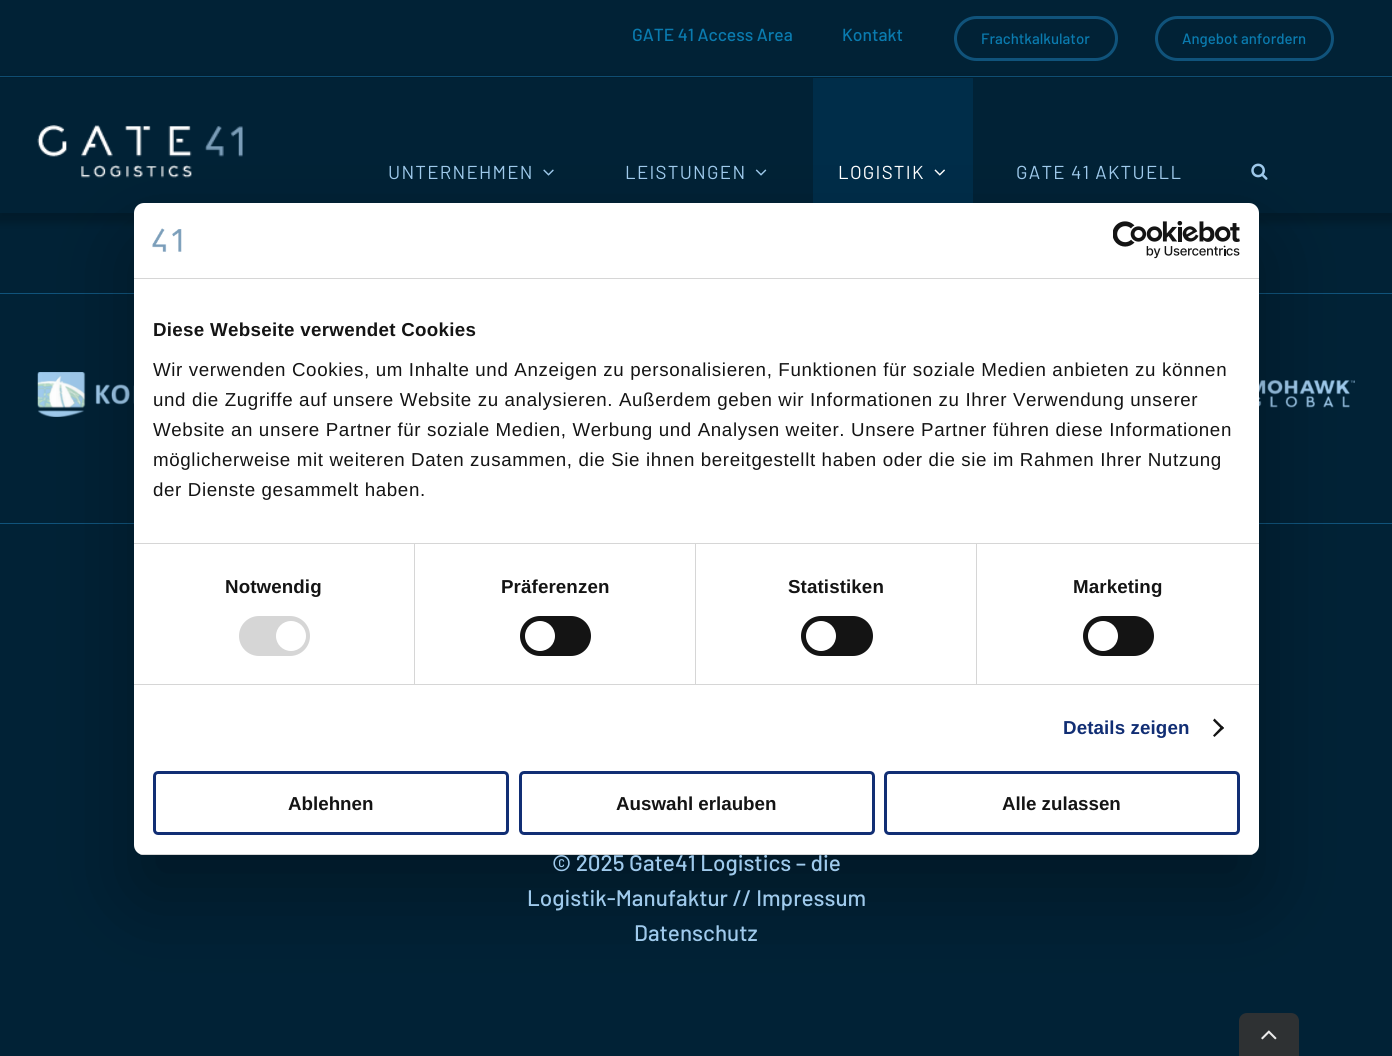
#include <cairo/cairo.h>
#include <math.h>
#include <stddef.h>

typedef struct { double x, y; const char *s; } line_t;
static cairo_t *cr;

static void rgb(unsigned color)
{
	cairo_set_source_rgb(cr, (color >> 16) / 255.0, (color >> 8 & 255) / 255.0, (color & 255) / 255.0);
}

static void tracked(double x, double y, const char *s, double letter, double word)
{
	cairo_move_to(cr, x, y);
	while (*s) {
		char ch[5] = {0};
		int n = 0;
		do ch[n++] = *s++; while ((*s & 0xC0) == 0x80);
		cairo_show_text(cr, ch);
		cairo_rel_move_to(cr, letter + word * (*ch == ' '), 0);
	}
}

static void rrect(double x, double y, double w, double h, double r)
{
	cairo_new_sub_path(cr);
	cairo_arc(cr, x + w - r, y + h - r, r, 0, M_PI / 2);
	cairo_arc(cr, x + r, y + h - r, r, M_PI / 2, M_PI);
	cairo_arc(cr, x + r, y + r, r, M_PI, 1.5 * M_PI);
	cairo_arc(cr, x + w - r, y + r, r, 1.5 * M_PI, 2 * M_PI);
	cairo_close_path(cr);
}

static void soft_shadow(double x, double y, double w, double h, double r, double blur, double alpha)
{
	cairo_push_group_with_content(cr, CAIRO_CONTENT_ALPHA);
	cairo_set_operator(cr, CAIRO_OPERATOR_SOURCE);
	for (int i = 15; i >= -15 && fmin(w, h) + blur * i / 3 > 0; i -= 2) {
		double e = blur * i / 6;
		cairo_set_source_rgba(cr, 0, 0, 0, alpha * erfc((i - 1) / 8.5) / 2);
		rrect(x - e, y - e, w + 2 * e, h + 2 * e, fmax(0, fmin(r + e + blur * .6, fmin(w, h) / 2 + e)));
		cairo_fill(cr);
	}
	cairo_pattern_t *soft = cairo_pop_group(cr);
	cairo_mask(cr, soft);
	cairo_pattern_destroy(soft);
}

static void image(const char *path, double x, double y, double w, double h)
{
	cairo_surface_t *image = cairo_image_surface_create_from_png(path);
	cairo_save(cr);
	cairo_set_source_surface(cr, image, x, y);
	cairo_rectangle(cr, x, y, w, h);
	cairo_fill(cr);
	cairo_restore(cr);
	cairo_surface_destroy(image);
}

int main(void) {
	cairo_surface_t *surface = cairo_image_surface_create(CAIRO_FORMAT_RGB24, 1392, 1056);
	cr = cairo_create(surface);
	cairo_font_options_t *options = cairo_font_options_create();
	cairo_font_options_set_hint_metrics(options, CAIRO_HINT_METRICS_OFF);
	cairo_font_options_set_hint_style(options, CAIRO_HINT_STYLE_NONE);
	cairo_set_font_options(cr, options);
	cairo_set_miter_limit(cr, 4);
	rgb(0x012236);
	cairo_paint(cr);
	rgb(0x10537b);
	cairo_rectangle(cr, 0, 76, 1392, 1);
	cairo_fill(cr);
	rrect(955.5, 17.5, 161, 42, 21);
	cairo_set_line_width(cr, 3);
	cairo_stroke(cr);
	rrect(1156.5, 17.5, 176, 42, 21);
	cairo_stroke(cr);
	rgb(0x000000);
	soft_shadow(-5, 78, 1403, 145, 0, 4, 0.2);
	rgb(0x012236);
	cairo_rectangle(cr, 0, 78, 1392, 135);
	cairo_fill(cr);
	image("img/1.png", 37, 125, 206, 53);
	image("img/2.png", 543, 169, 11, 7);
	image("img/3.png", 755, 169, 12, 7);
	rgb(0x002d49);
	cairo_rectangle(cr, 813, 78, 160, 125);
	cairo_fill(cr);
	image("img/4.png", 934, 169, 11, 7);
	image("img/5.png", 1251, 163, 17, 17);
	rgb(0x10537b);
	cairo_rectangle(cr, 0, 293, 1392, 1);
	cairo_fill(cr);
	cairo_rectangle(cr, 0, 523, 1392, 1);
	cairo_fill(cr);
	image("img/6.png", 37, 372, 97, 45);
	image("img/7.png", 1259, 380, 96, 28);
	rgb(0x2e3133);
	cairo_new_path(cr);
	cairo_move_to(cr, 1247, 1013);
	cairo_line_to(cr, 1291, 1013);
	cairo_curve_to(cr, 1295.5, 1013, 1299, 1016.5, 1299, 1021);
	cairo_line_to(cr, 1299, 1056);
	cairo_line_to(cr, 1239, 1056);
	cairo_line_to(cr, 1239, 1021);
	cairo_curve_to(cr, 1239, 1016.5, 1242.5, 1013, 1247, 1013);
	cairo_close_path(cr);
	cairo_fill(cr);
	rgb(0x000000);
	soft_shadow(134, 243, 1125, 652, 10, 42.5, 0.3);
	image("img/10.png", 1261, 1030, 16, 10);
	cairo_select_font_face(cr, "Barlow Medium", CAIRO_FONT_SLANT_NORMAL, CAIRO_FONT_WEIGHT_NORMAL);
	cairo_set_font_size(cr, 17.5);
	rgb(0x0a7baf);
	cairo_move_to(cr, 632, 41);
	cairo_show_text(cr, "GATE 41 Access Area");
	cairo_move_to(cr, 842, 41);
	cairo_show_text(cr, "Kontakt");
	cairo_set_font_size(cr, 15);
	cairo_move_to(cr, 981, 44);
	cairo_show_text(cr, "Frachtkalkulator");
	cairo_move_to(cr, 1182, 44);
	cairo_show_text(cr, "Angebot anfordern");
	cairo_select_font_face(cr, "Barlow", CAIRO_FONT_SLANT_NORMAL, CAIRO_FONT_WEIGHT_NORMAL);
	cairo_set_font_size(cr, 18.75);
	rgb(0x9fcaec);
	tracked(388, 179, "UNTERNEHMEN", 1.25, 0);
	tracked(625, 179, "LEISTUNGEN", 1.25, 0);
	rgb(0xffffff);
	tracked(838, 179, "LOGISTIK", 1.25, 0);
	rgb(0x9fcaec);
	tracked(1016, 179, "GATE 41 AKTUELL", 1.25, 0);
	cairo_select_font_face(cr, "Barlow Medium", CAIRO_FONT_SLANT_NORMAL, CAIRO_FONT_WEIGHT_NORMAL);
	cairo_set_font_size(cr, 22.5);
	{
		static const line_t items[] = {
			{552, 871, "© 2025 Gate41 Logistics – die"},
			{527, 906, "Logistik-Manufaktur // Impressum"},
			{634, 941, "Datenschutz"},
		};
		for (size_t i = 0; i < sizeof items / sizeof *items; i++) {
			cairo_move_to(cr, items[i].x, items[i].y);
			cairo_show_text(cr, items[i].s);
		}
	}
	rgb(0xffffff);
	rrect(134, 203, 1125, 652, 10);
	cairo_fill(cr);
	rgb(0xd6d6d6);
	cairo_rectangle(cr, 134, 278, 1125, 1);
	cairo_fill(cr);
	image("img/8.png", 152, 228, 30, 24);
	image("img/9.png", 1113, 221, 127, 38);
	cairo_rectangle(cr, 134, 543, 1125, 1);
	cairo_fill(cr);
	cairo_select_font_face(cr, "Liberation Sans", CAIRO_FONT_SLANT_NORMAL, CAIRO_FONT_WEIGHT_BOLD);
	cairo_set_font_size(cr, 18.75);
	rgb(0x141414);
	tracked(153, 336, "Diese Webseite verwendet Cookies", 0.3, 0);
	cairo_select_font_face(cr, "Liberation Sans", CAIRO_FONT_SLANT_NORMAL, CAIRO_FONT_WEIGHT_NORMAL);
	{
		static const line_t items[] = {
			{153, 376, "Wir verwenden Cookies, um Inhalte und Anzeigen zu personalisieren, Funktionen für soziale Medien anbieten zu können"},
			{153, 406, "und die Zugriffe auf unsere Website zu analysieren. Außerdem geben wir Informationen zu Ihrer Verwendung unserer"},
			{153, 436, "Website an unsere Partner für soziale Medien, Werbung und Analysen weiter. Unsere Partner führen diese Informationen"},
			{153, 466, "möglicherweise mit weiteren Daten zusammen, die Sie ihnen bereitgestellt haben oder die sie im Rahmen Ihrer Nutzung"},
			{153, 496, "der Dienste gesammelt haben."},
		};
		for (size_t i = 0; i < sizeof items / sizeof *items; i++) {
			tracked(items[i].x, items[i].y, items[i].s, 0.62, 0);
		}
	}
	rgb(0xd6d6d6);
	cairo_rectangle(cr, 134, 684, 1125, 1);
	cairo_fill(cr);
	cairo_rectangle(cr, 414, 544, 1, 140);
	cairo_fill(cr);
	cairo_select_font_face(cr, "Liberation Sans", CAIRO_FONT_SLANT_NORMAL, CAIRO_FONT_WEIGHT_BOLD);
	rgb(0x141414);
	tracked(225, 593, "Notwendig", 0.1, 0);
	rgb(0xd6d6d6);
	rrect(239, 616, 71, 40, 20);
	cairo_fill(cr);
	rgb(0xffffff);
	cairo_arc(cr, 291, 636, 15, 0, 2 * M_PI);
	cairo_fill(cr);
	rgb(0xd6d6d6);
	cairo_rectangle(cr, 695, 544, 1, 140);
	cairo_fill(cr);
	rgb(0x141414);
	tracked(501, 593, "Präferenzen", 0.1, 0);
	rrect(520, 616, 71, 40, 20);
	cairo_fill(cr);
	rgb(0xffffff);
	cairo_arc(cr, 540, 636, 15, 0, 2 * M_PI);
	cairo_fill(cr);
	rgb(0xd6d6d6);
	cairo_rectangle(cr, 976, 544, 1, 140);
	cairo_fill(cr);
	rgb(0x141414);
	tracked(788, 593, "Statistiken", 0.1, 0);
	rrect(801, 616, 72, 40, 20);
	cairo_fill(cr);
	rgb(0xffffff);
	cairo_arc(cr, 821, 636, 15, 0, 2 * M_PI);
	cairo_fill(cr);
	rgb(0x141414);
	tracked(1073, 593, "Marketing", 0.1, 0);
	rrect(1083, 616, 71, 40, 20);
	cairo_fill(cr);
	rgb(0xffffff);
	cairo_arc(cr, 1103, 636, 15, 0, 2 * M_PI);
	cairo_fill(cr);
	rgb(0x112e74);
	tracked(1063, 734, "Details zeigen", 0.1, 0);
	rgb(0x141414);
	cairo_new_path(cr);
	cairo_move_to(cr, 1214.5, 718.5);
	cairo_line_to(cr, 1224, 728);
	cairo_line_to(cr, 1222, 729.5);
	cairo_line_to(cr, 1213, 720.5);
	cairo_close_path(cr);
	cairo_fill(cr);
	cairo_new_path(cr);
	cairo_move_to(cr, 1222, 726);
	cairo_line_to(cr, 1224, 728);
	cairo_line_to(cr, 1214.5, 737);
	cairo_line_to(cr, 1213, 735.5);
	cairo_close_path(cr);
	cairo_fill(cr);
	cairo_save(cr);
	rrect(134, 203, 1125, 652, 10);
	cairo_clip(cr);
	rgb(0xd6d6d6);
	cairo_rectangle(cr, 134, 854, 1125, 1);
	cairo_fill(cr);
	cairo_restore(cr);
	rrect(154.5, 772.5, 353, 61, 3.5);
	rgb(0x112e74);
	cairo_stroke(cr);
	rgb(0x141414);
	cairo_move_to(cr, 288, 810);
	cairo_show_text(cr, "Ablehnen");
	rrect(520.5, 772.5, 353, 61, 3.5);
	rgb(0x112e74);
	cairo_stroke(cr);
	rgb(0x141414);
	cairo_move_to(cr, 616, 810);
	cairo_show_text(cr, "Auswahl erlauben");
	rrect(885.5, 772.5, 353, 61, 3.5);
	rgb(0x112e74);
	cairo_stroke(cr);
	rgb(0x141414);
	cairo_move_to(cr, 1002, 810);
	cairo_show_text(cr, "Alle zulassen");
	cairo_surface_write_to_png(surface, "page.png");
	cairo_font_options_destroy(options);
	cairo_destroy(cr);
	cairo_surface_destroy(surface);
	return 0;
}
